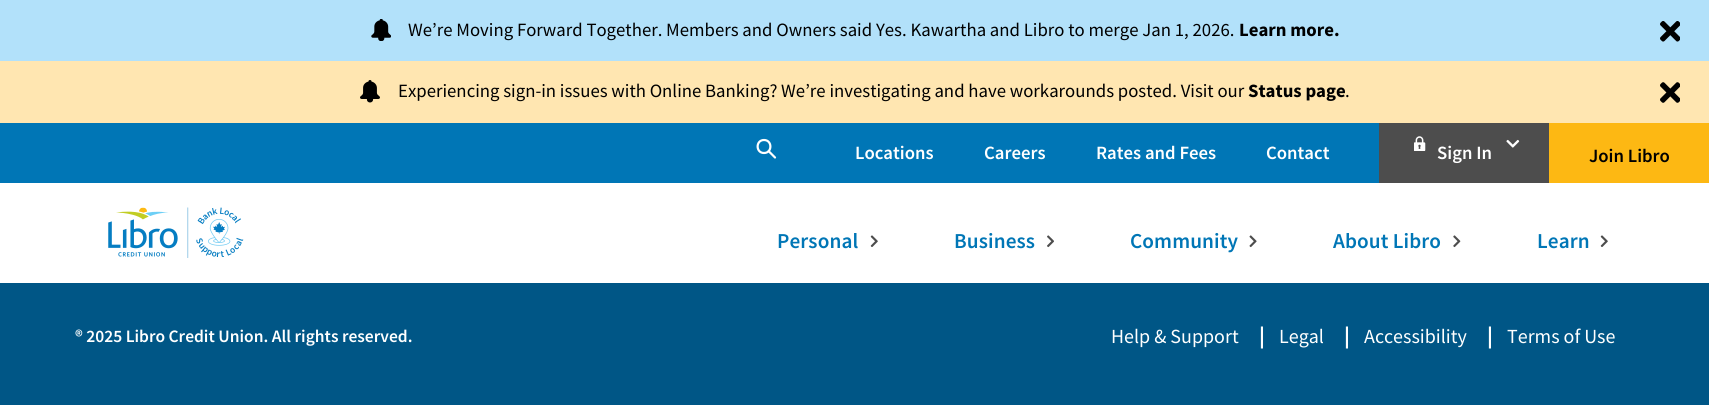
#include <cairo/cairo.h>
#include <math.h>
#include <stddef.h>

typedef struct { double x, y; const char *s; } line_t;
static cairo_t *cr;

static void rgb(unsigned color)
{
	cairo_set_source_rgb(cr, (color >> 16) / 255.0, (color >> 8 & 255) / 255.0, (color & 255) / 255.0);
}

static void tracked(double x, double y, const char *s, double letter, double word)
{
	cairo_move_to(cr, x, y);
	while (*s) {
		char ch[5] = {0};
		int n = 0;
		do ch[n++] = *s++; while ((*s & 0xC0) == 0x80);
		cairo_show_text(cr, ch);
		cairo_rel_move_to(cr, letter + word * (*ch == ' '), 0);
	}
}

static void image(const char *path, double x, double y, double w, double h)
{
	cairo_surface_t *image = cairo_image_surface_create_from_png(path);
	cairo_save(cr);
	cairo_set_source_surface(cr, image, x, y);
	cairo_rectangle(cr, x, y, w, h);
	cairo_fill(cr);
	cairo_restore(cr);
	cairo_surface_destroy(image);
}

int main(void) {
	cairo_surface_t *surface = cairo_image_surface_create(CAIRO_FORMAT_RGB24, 1709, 405);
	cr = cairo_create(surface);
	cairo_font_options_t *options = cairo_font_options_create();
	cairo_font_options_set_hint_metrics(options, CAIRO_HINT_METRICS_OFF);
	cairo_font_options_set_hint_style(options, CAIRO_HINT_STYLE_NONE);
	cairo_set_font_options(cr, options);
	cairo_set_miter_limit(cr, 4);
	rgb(0x005686);
	cairo_paint(cr);
	rgb(0xb2e1fa);
	cairo_rectangle(cr, 0, 0, 1709, 61);
	cairo_fill(cr);
	image("img/1.png", 371, 19, 20, 22);
	image("img/2.png", 1660, 21, 20, 21);
	rgb(0xffe6b1);
	cairo_rectangle(cr, 0, 61, 1709, 62);
	cairo_fill(cr);
	image("img/3.png", 360, 80, 20, 23);
	image("img/4.png", 1660, 82, 20, 21);
	rgb(0x0076b6);
	cairo_rectangle(cr, 0, 123, 1379, 60);
	cairo_fill(cr);
	cairo_new_path(cr);
	cairo_move_to(cr, 768.5, 151);
	cairo_line_to(cr, 775, 157.5);
	cairo_close_path(cr);
	cairo_move_to(cr, 764, 153);
	cairo_curve_to(cr, 755.5, 153, 755.5, 140, 764, 140);
	cairo_curve_to(cr, 772.5, 140, 772.5, 153, 764, 153);
	cairo_close_path(cr);
	rgb(0xffffff);
	cairo_set_line_width(cr, 2.2);
	cairo_set_line_cap(cr, CAIRO_LINE_CAP_ROUND);
	cairo_set_line_join(cr, CAIRO_LINE_JOIN_ROUND);
	cairo_stroke(cr);
	rgb(0x4d4d4d);
	cairo_rectangle(cr, 1379, 123, 170, 60);
	cairo_fill(cr);
	image("img/5.png", 1414, 136, 12, 15);
	image("img/6.png", 1506, 139, 14, 9);
	rgb(0xfdb813);
	cairo_rectangle(cr, 1549, 123, 160, 60);
	cairo_fill(cr);
	rgb(0xffffff);
	cairo_rectangle(cr, 0, 183, 1709, 100);
	cairo_fill(cr);
	image("img/7.png", 108, 207, 136, 51);
	image("img/8.png", 870, 235, 8, 12);
	image("img/9.png", 1047, 235, 7, 13);
	image("img/10.png", 1249, 235, 8, 13);
	image("img/11.png", 1453, 235, 8, 13);
	image("img/8.png", 1600, 235, 8, 12);
	cairo_select_font_face(cr, "Source Sans Pro", CAIRO_FONT_SLANT_NORMAL, CAIRO_FONT_WEIGHT_NORMAL);
	cairo_set_font_size(cr, 18.75);
	rgb(0x000000);
	cairo_move_to(cr, 408, 36);
	cairo_show_text(cr, "We’re Moving Forward Together. Members and Owners said Yes. Kawartha and Libro to merge Jan 1, 2026.");
	cairo_select_font_face(cr, "Source Sans Pro", CAIRO_FONT_SLANT_NORMAL, CAIRO_FONT_WEIGHT_BOLD);
	cairo_move_to(cr, 1239, 36);
	cairo_show_text(cr, "Learn more.");
	cairo_select_font_face(cr, "Source Sans Pro", CAIRO_FONT_SLANT_NORMAL, CAIRO_FONT_WEIGHT_NORMAL);
	cairo_move_to(cr, 398, 97);
	cairo_show_text(cr, "Experiencing sign-in issues with Online Banking? We’re investigating and have workarounds posted. Visit our");
	cairo_select_font_face(cr, "Source Sans Pro", CAIRO_FONT_SLANT_NORMAL, CAIRO_FONT_WEIGHT_BOLD);
	cairo_move_to(cr, 1248, 97);
	cairo_show_text(cr, "Status page");
	cairo_select_font_face(cr, "Source Sans Pro", CAIRO_FONT_SLANT_NORMAL, CAIRO_FONT_WEIGHT_NORMAL);
	cairo_move_to(cr, 1345, 97);
	cairo_show_text(cr, ".");
	cairo_select_font_face(cr, "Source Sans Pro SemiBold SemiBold", CAIRO_FONT_SLANT_NORMAL, CAIRO_FONT_WEIGHT_NORMAL);
	rgb(0xffffff);
	{
		static const line_t items[] = {
			{855, 159, "Locations"},
			{984, 159, "Careers"},
			{1096, 159, "Rates and Fees"},
			{1266, 159, "Contact"},
			{1437, 159, "Sign In"},
		};
		for (size_t i = 0; i < sizeof items / sizeof *items; i++) {
			cairo_move_to(cr, items[i].x, items[i].y);
			cairo_show_text(cr, items[i].s);
		}
	}
	rgb(0x000000);
	cairo_move_to(cr, 1589, 162);
	cairo_show_text(cr, "Join Libro");
	cairo_set_font_size(cr, 21.25);
	rgb(0x0076b6);
	{
		static const line_t items[] = {
			{777, 248, "Personal"},
			{954, 248, "Business"},
			{1130, 248, "Community"},
			{1333, 248, "About Libro"},
			{1537, 248, "Learn"},
		};
		for (size_t i = 0; i < sizeof items / sizeof *items; i++) {
			tracked(items[i].x, items[i].y, items[i].s, 0.1, 0);
		}
	}
	cairo_set_font_size(cr, 17.5);
	rgb(0xffffff);
	cairo_move_to(cr, 75, 342);
	cairo_show_text(cr, "® 2025 Libro Credit Union. All rights reserved.");
	cairo_select_font_face(cr, "Source Sans Pro", CAIRO_FONT_SLANT_NORMAL, CAIRO_FONT_WEIGHT_NORMAL);
	cairo_set_font_size(cr, 20);
	cairo_move_to(cr, 1111, 343);
	cairo_show_text(cr, "Help & Support");
	cairo_select_font_face(cr, "Source Sans Pro", CAIRO_FONT_SLANT_NORMAL, CAIRO_FONT_WEIGHT_BOLD);
	cairo_set_font_size(cr, 22);
	cairo_move_to(cr, 1259, 343);
	cairo_show_text(cr, "|");
	cairo_select_font_face(cr, "Source Sans Pro", CAIRO_FONT_SLANT_NORMAL, CAIRO_FONT_WEIGHT_NORMAL);
	cairo_set_font_size(cr, 20);
	cairo_move_to(cr, 1279, 343);
	cairo_show_text(cr, "Legal");
	cairo_select_font_face(cr, "Source Sans Pro", CAIRO_FONT_SLANT_NORMAL, CAIRO_FONT_WEIGHT_BOLD);
	cairo_set_font_size(cr, 22);
	cairo_move_to(cr, 1344, 343);
	cairo_show_text(cr, "|");
	cairo_select_font_face(cr, "Source Sans Pro", CAIRO_FONT_SLANT_NORMAL, CAIRO_FONT_WEIGHT_NORMAL);
	cairo_set_font_size(cr, 20);
	cairo_move_to(cr, 1364, 343);
	cairo_show_text(cr, "Accessibility");
	cairo_select_font_face(cr, "Source Sans Pro", CAIRO_FONT_SLANT_NORMAL, CAIRO_FONT_WEIGHT_BOLD);
	cairo_set_font_size(cr, 22);
	cairo_move_to(cr, 1487, 343);
	cairo_show_text(cr, "|");
	cairo_select_font_face(cr, "Source Sans Pro", CAIRO_FONT_SLANT_NORMAL, CAIRO_FONT_WEIGHT_NORMAL);
	cairo_set_font_size(cr, 20);
	cairo_move_to(cr, 1507, 343);
	cairo_show_text(cr, "Terms of Use");
	cairo_surface_write_to_png(surface, "page.png");
	cairo_font_options_destroy(options);
	cairo_destroy(cr);
	cairo_surface_destroy(surface);
	return 0;
}
